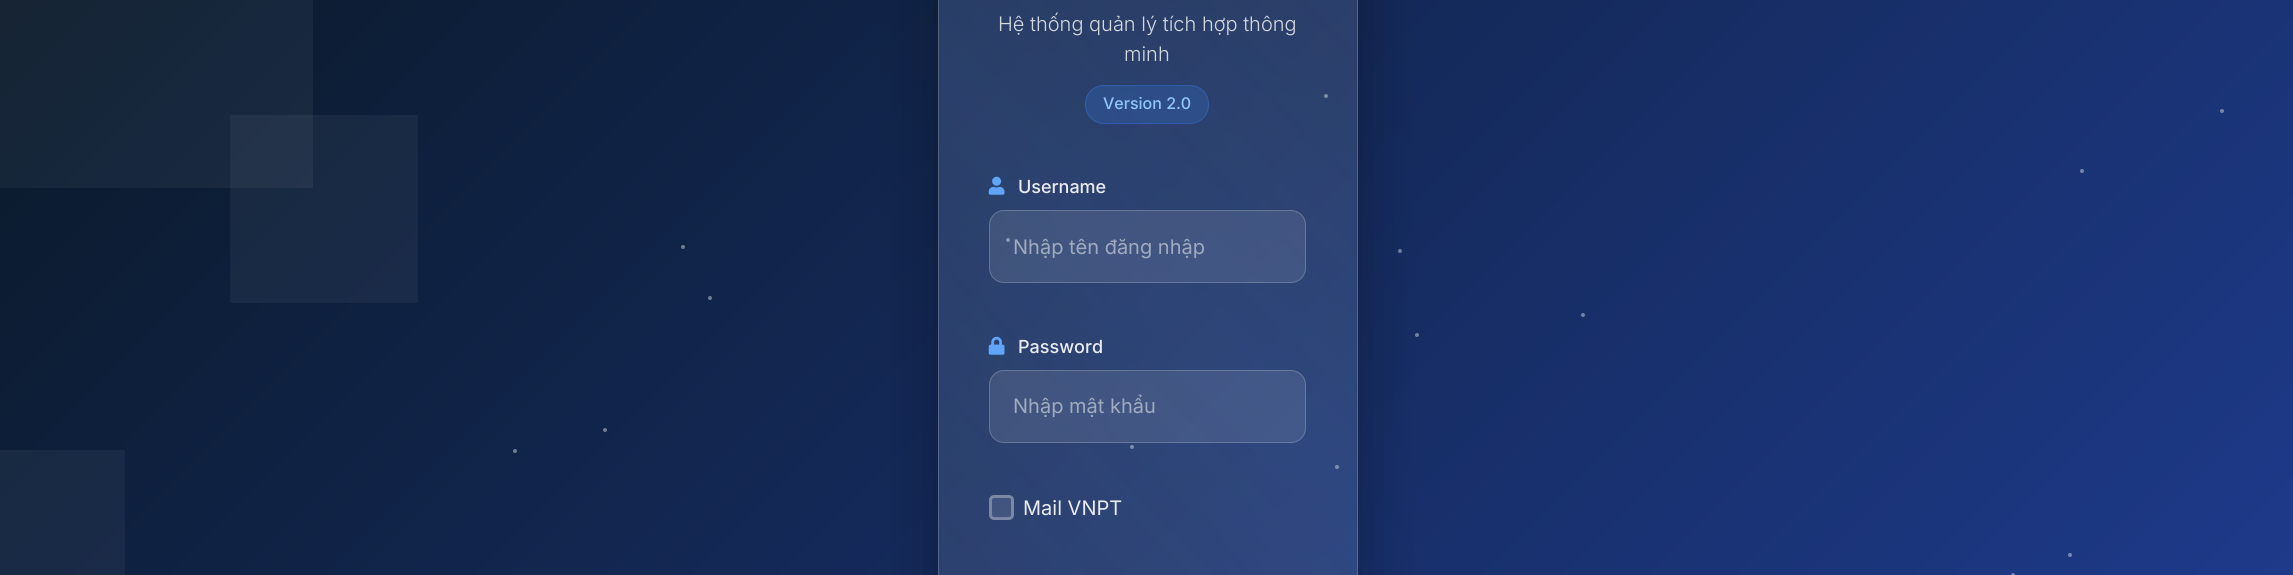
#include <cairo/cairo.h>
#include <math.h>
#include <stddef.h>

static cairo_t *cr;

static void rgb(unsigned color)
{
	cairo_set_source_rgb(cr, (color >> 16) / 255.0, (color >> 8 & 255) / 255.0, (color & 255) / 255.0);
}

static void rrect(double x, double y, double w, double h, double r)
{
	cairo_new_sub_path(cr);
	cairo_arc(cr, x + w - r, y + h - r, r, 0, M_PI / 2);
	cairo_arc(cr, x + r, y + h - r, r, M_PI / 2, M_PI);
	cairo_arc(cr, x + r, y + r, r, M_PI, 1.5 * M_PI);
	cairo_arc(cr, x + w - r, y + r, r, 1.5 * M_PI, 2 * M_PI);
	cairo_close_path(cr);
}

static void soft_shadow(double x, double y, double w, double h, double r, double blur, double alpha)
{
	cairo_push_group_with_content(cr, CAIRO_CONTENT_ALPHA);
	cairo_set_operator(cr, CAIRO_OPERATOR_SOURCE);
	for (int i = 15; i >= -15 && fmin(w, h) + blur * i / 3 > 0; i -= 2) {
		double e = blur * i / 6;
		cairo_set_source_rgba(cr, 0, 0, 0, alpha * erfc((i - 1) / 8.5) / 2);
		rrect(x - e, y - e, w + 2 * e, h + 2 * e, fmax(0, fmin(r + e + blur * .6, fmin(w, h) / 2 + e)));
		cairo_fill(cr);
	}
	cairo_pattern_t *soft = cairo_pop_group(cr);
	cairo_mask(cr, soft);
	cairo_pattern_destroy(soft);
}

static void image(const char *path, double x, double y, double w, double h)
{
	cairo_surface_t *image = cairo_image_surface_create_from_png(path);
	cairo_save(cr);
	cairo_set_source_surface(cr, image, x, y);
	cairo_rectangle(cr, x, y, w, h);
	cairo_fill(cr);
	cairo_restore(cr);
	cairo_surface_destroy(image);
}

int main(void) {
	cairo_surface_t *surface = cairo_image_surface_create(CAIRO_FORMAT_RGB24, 2293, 575);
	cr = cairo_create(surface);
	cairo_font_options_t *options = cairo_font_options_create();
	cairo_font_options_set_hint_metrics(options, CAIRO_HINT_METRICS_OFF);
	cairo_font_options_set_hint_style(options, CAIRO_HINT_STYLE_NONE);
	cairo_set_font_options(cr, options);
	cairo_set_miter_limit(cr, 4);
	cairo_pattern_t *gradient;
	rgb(0xffffff);
	cairo_paint(cr);
	gradient = cairo_pattern_create_linear(1719, -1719, 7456, 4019);
	cairo_pattern_add_color_stop_rgba(gradient, 0, 0.039, 0.098, 0.161, 1);
	cairo_pattern_add_color_stop_rgba(gradient, 0.25, 0.118, 0.227, 0.541, 1);
	cairo_pattern_add_color_stop_rgba(gradient, 0.5, 0.118, 0.251, 0.686, 1);
	cairo_pattern_add_color_stop_rgba(gradient, 0.75, 0.012, 0.412, 0.631, 1);
	cairo_pattern_add_color_stop_rgba(gradient, 1, 0.008, 0.518, 0.78, 1);
	cairo_set_source(cr, gradient);
	cairo_pattern_destroy(gradient);
	cairo_rectangle(cr, 0, 0, 2293, 575);
	cairo_fill(cr);
	cairo_set_source_rgba(cr, 1, 1, 1, 0.05);
	cairo_rectangle(cr, 0, 0, 313, 188);
	cairo_fill(cr);
	cairo_rectangle(cr, 230, 115, 188, 188);
	cairo_fill(cr);
	rgb(0x727f9b);
	cairo_arc(cr, 1326, 96, 2, 0, 2 * M_PI);
	cairo_fill(cr);
	rgb(0x7685ae);
	cairo_arc(cr, 2222, 111, 2, 0, 2 * M_PI);
	cairo_fill(cr);
	rgb(0x7685ac);
	cairo_arc(cr, 2082, 171, 2, 0, 2 * M_PI);
	cairo_fill(cr);
	rgb(0x717d98);
	cairo_arc(cr, 1008, 240, 2, 0, 2 * M_PI);
	cairo_fill(cr);
	rgb(0x707c91);
	cairo_arc(cr, 683, 247, 2, 0, 2 * M_PI);
	cairo_fill(cr);
	rgb(0x7380a0);
	cairo_arc(cr, 1400, 251, 2, 0, 2 * M_PI);
	cairo_fill(cr);
	rgb(0x707c93);
	cairo_arc(cr, 710, 298, 2, 0, 2 * M_PI);
	cairo_fill(cr);
	rgb(0x7482a5);
	cairo_arc(cr, 1583, 315, 2, 0, 2 * M_PI);
	cairo_fill(cr);
	rgb(0x7381a2);
	cairo_arc(cr, 1417, 335, 2, 0, 2 * M_PI);
	cairo_fill(cr);
	rgb(0x707c94);
	cairo_arc(cr, 605, 430, 2, 0, 2 * M_PI);
	cairo_fill(cr);
	rgb(0x73809e);
	cairo_arc(cr, 1132, 447, 2, 0, 2 * M_PI);
	cairo_fill(cr);
	rgb(0x707c92);
	cairo_arc(cr, 515, 451, 2, 0, 2 * M_PI);
	cairo_fill(cr);
	rgb(0x7482a3);
	cairo_arc(cr, 1337, 467, 2, 0, 2 * M_PI);
	cairo_fill(cr);
	rgb(0x7787b4);
	cairo_arc(cr, 2070, 555, 2, 0, 2 * M_PI);
	cairo_fill(cr);
	rgb(0x7787b3);
	cairo_new_path(cr);
	cairo_move_to(cr, 2013, 573);
	cairo_curve_to(cr, 2014, 573, 2015, 574, 2015, 575);
	cairo_line_to(cr, 2011, 575);
	cairo_curve_to(cr, 2011, 574, 2012, 573, 2013, 573);
	cairo_close_path(cr);
	cairo_fill(cr);
	cairo_set_source_rgba(cr, 1, 1, 1, 0.05);
	cairo_rectangle(cr, 0, 450, 125, 125);
	cairo_fill(cr);
	cairo_save(cr);
	cairo_set_fill_rule(cr, CAIRO_FILL_RULE_EVEN_ODD);
	cairo_new_path(cr);
	cairo_move_to(cr, 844, 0);
	cairo_line_to(cr, 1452, 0);
	cairo_line_to(cr, 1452, 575);
	cairo_line_to(cr, 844, 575);
	cairo_close_path(cr);
	cairo_move_to(cr, 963, -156);
	cairo_line_to(cr, 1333, -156);
	cairo_curve_to(cr, 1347, -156, 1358, -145, 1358, -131);
	cairo_line_to(cr, 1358, 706);
	cairo_curve_to(cr, 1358, 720, 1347, 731, 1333, 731);
	cairo_line_to(cr, 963, 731);
	cairo_curve_to(cr, 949, 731, 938, 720, 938, 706);
	cairo_line_to(cr, 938, -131);
	cairo_curve_to(cr, 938, -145, 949, -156, 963, -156);
	cairo_close_path(cr);
	cairo_clip(cr);
	rgb(0x000000);
	soft_shadow(938, -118, 420, 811, 25, 31, 0.3);
	cairo_restore(cr);
	cairo_set_source_rgba(cr, 1, 1, 1, 0.1);
	cairo_rectangle(cr, 938, 0, 420, 575);
	cairo_fill(cr);
	cairo_rectangle(cr, 938.5, -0.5, 419, 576);
	cairo_set_source_rgba(cr, 1, 1, 1, 0.2);
	cairo_set_line_width(cr, 1);
	cairo_stroke(cr);
	cairo_set_source_rgba(cr, 0.231, 0.51, 0.965, 0.2);
	rrect(1085, 85, 124, 39, 19);
	cairo_fill(cr);
	rrect(1085.5, 85.5, 123, 38, 18.5);
	cairo_set_source_rgba(cr, 0.231, 0.51, 0.965, 0.3);
	cairo_stroke(cr);
	gradient = cairo_pattern_create_linear(822, 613, 1473, -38);
	cairo_pattern_add_color_stop_rgba(gradient, 0, 0.231, 0.51, 0.965, 0);
	cairo_pattern_add_color_stop_rgba(gradient, 0.5, 0.231, 0.51, 0.965, 0.08);
	cairo_pattern_add_color_stop_rgba(gradient, 1, 0.231, 0.51, 0.965, 0);
	cairo_set_source(cr, gradient);
	cairo_pattern_destroy(gradient);
	cairo_rectangle(cr, 939, 0, 417, 575);
	cairo_fill(cr);
	image("img/1.png", 988, 176, 17, 19);
	cairo_set_source_rgba(cr, 1, 1, 1, 0.1);
	rrect(989, 210, 317, 73, 15);
	cairo_fill(cr);
	rrect(989.5, 210.5, 316, 72, 14.5);
	cairo_set_source_rgba(cr, 1, 1, 1, 0.2);
	cairo_stroke(cr);
	image("img/2.png", 988, 336, 17, 19);
	cairo_set_source_rgba(cr, 1, 1, 1, 0.1);
	rrect(989, 370, 317, 73, 15);
	cairo_fill(cr);
	rrect(989.5, 370.5, 316, 72, 14.5);
	cairo_set_source_rgba(cr, 1, 1, 1, 0.2);
	cairo_stroke(cr);
	cairo_set_source_rgba(cr, 1, 1, 1, 0.1);
	rrect(989, 495, 25, 25, 5);
	cairo_fill(cr);
	rrect(990.5, 496.5, 22, 22, 3.5);
	cairo_set_source_rgba(cr, 1, 1, 1, 0.3);
	cairo_set_line_width(cr, 3);
	cairo_stroke(cr);
	cairo_select_font_face(cr, "Inter Light", CAIRO_FONT_SLANT_NORMAL, CAIRO_FONT_WEIGHT_NORMAL);
	cairo_set_font_size(cr, 20);
	rgb(0xd4d8e0);
	cairo_move_to(cr, 998, 31);
	cairo_show_text(cr, "Hệ thống quản lý tích hợp thông");
	cairo_move_to(cr, 1124, 61);
	cairo_show_text(cr, "minh");
	cairo_select_font_face(cr, "Inter Medium", CAIRO_FONT_SLANT_NORMAL, CAIRO_FONT_WEIGHT_NORMAL);
	cairo_set_font_size(cr, 16);
	rgb(0x93c5fd);
	cairo_move_to(cr, 1103, 109);
	cairo_show_text(cr, "Version 2.0");
	cairo_set_font_size(cr, 18);
	rgb(0xeaecf1);
	cairo_move_to(cr, 1018, 193);
	cairo_show_text(cr, "Username");
	cairo_select_font_face(cr, "Inter", CAIRO_FONT_SLANT_NORMAL, CAIRO_FONT_WEIGHT_NORMAL);
	cairo_set_font_size(cr, 20);
	rgb(0xa0aac0);
	cairo_move_to(cr, 1013, 254);
	cairo_show_text(cr, "Nhập tên đăng nhập");
	cairo_select_font_face(cr, "Inter Medium", CAIRO_FONT_SLANT_NORMAL, CAIRO_FONT_WEIGHT_NORMAL);
	cairo_set_font_size(cr, 18);
	rgb(0xeaecf1);
	cairo_move_to(cr, 1018, 353);
	cairo_show_text(cr, "Password");
	cairo_select_font_face(cr, "Inter", CAIRO_FONT_SLANT_NORMAL, CAIRO_FONT_WEIGHT_NORMAL);
	cairo_set_font_size(cr, 20);
	rgb(0xa0aac0);
	cairo_move_to(cr, 1013, 413);
	cairo_show_text(cr, "Nhập mật khẩu");
	rgb(0xeaecf1);
	cairo_move_to(cr, 1023, 515);
	cairo_show_text(cr, "Mail VNPT");
	cairo_surface_write_to_png(surface, "page.png");
	cairo_font_options_destroy(options);
	cairo_destroy(cr);
	cairo_surface_destroy(surface);
	return 0;
}
